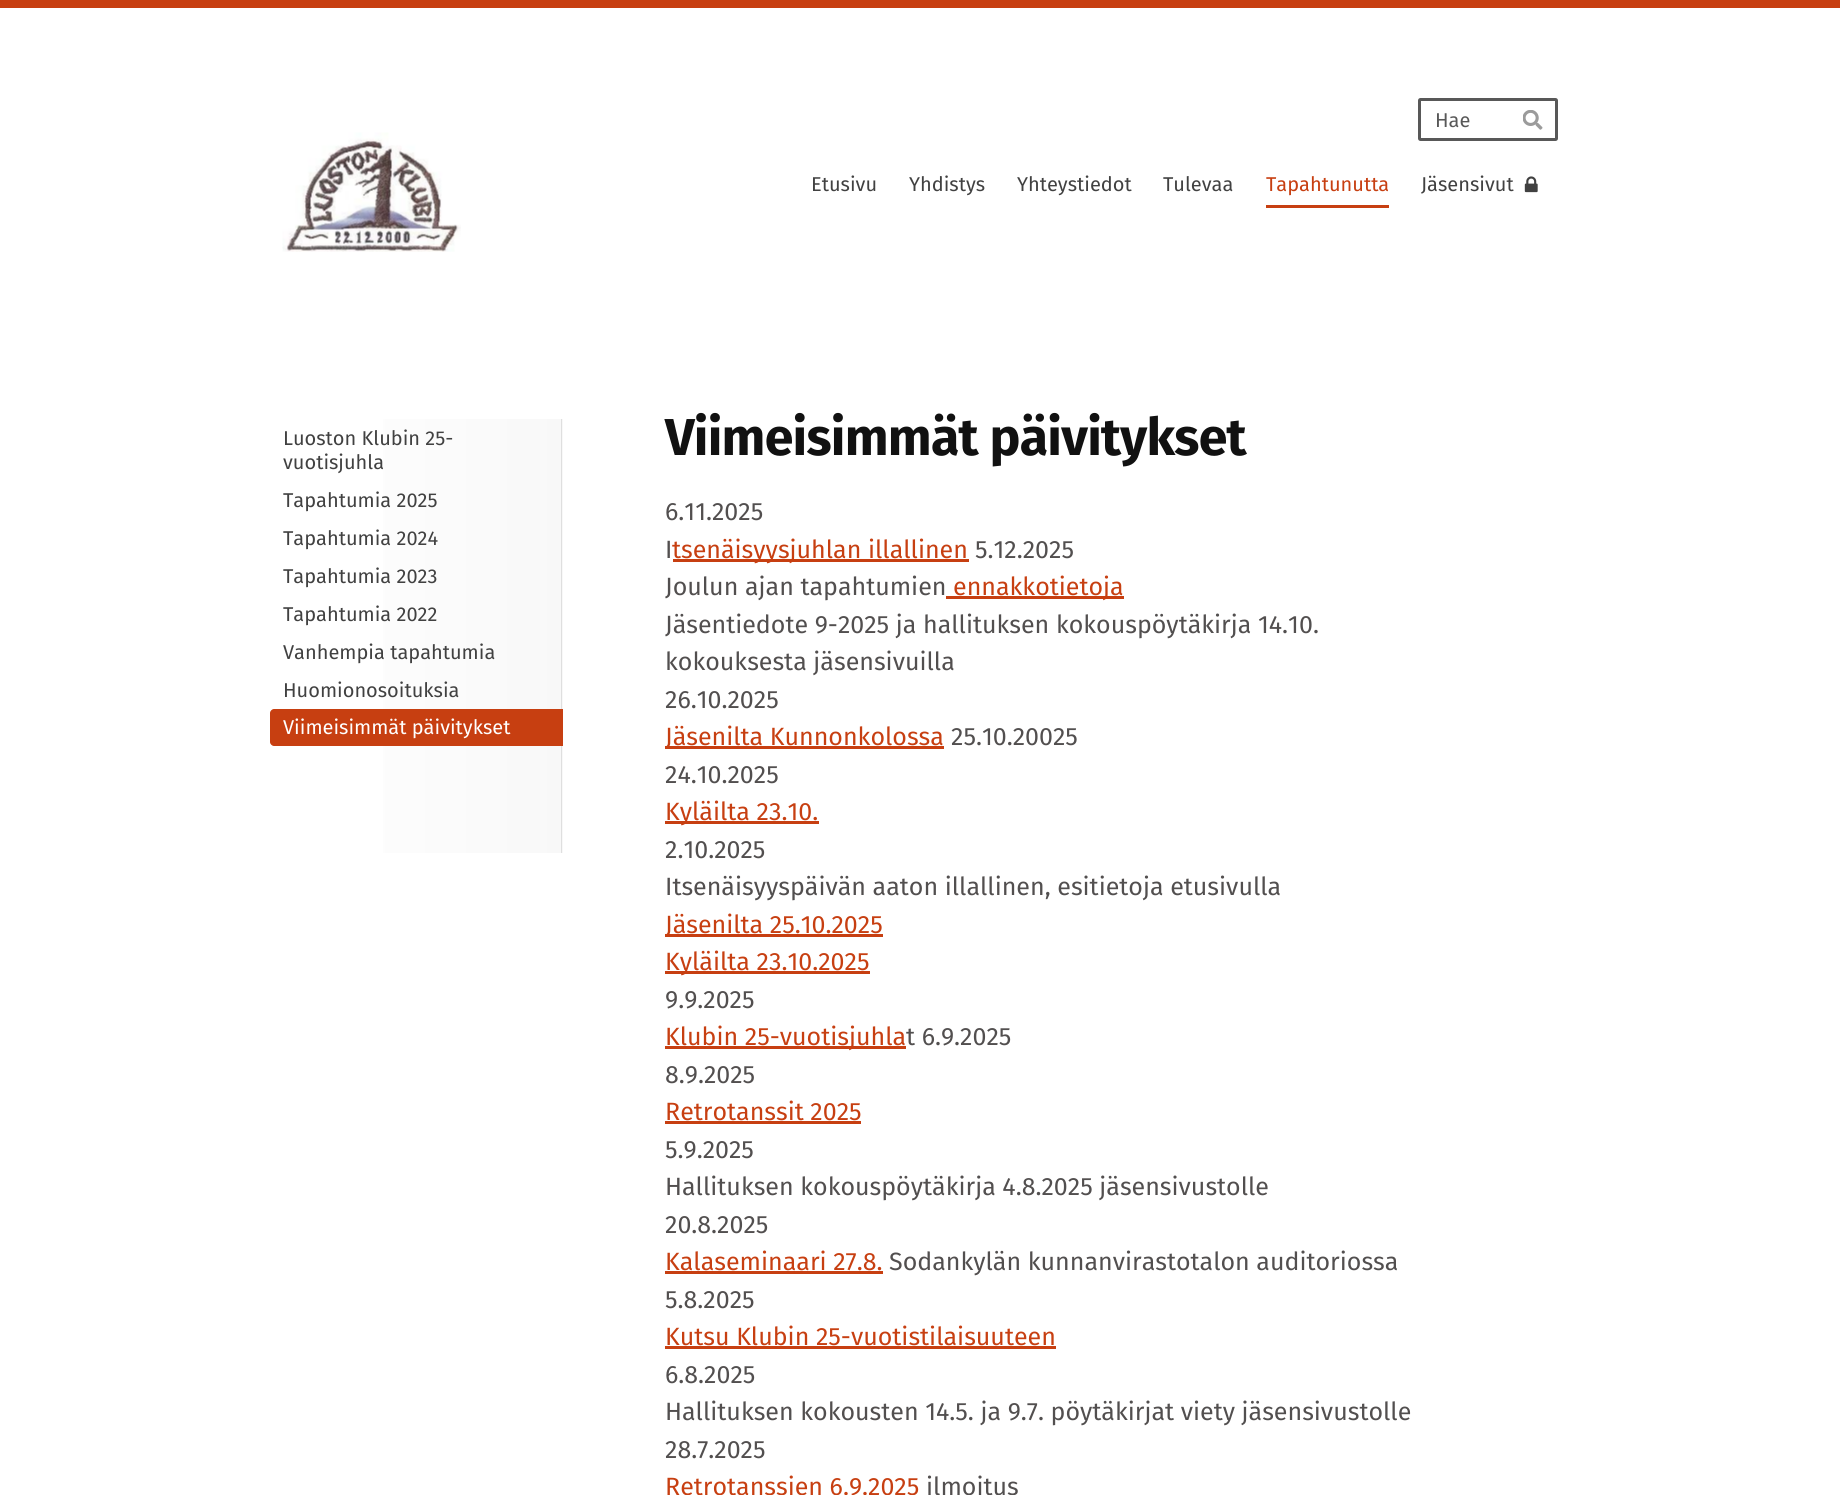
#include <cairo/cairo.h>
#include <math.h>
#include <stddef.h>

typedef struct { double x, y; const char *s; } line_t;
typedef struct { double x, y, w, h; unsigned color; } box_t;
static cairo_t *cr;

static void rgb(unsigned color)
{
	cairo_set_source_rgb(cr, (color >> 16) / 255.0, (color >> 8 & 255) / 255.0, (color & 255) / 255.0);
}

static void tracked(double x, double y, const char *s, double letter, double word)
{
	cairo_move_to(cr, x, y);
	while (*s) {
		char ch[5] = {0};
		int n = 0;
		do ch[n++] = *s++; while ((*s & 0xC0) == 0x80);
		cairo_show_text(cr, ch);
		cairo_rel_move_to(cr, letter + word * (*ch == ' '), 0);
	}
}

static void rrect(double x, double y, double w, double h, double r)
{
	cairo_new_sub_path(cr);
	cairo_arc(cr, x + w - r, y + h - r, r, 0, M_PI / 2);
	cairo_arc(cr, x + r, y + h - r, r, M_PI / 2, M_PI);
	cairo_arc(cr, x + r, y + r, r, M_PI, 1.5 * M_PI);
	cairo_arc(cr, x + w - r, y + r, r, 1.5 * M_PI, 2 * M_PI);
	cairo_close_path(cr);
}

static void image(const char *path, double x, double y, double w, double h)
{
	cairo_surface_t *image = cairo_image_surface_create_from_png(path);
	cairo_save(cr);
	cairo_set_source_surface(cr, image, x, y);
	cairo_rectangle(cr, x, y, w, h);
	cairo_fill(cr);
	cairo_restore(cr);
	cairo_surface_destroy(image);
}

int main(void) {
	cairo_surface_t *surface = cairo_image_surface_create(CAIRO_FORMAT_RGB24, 1840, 1495);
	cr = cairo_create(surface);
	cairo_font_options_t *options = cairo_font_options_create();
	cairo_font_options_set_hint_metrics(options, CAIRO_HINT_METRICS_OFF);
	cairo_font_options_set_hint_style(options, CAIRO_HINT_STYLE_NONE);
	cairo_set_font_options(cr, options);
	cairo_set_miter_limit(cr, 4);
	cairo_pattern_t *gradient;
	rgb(0xffffff);
	cairo_paint(cr);
	rgb(0xc73f11);
	cairo_rectangle(cr, 0, 0, 1840, 8);
	cairo_fill(cr);
	rrect(1419.5, 99.5, 137, 40, 1);
	rgb(0x585858);
	cairo_set_line_width(cr, 3);
	cairo_stroke(cr);
	image("img/1.png", 1523, 110, 20, 20);
	image("img/2.png", 282, 132, 179, 120);
	rgb(0xc73f11);
	cairo_rectangle(cr, 1266, 205, 123, 3);
	cairo_fill(cr);
	image("img/3.png", 1524, 176, 14, 17);
	gradient = cairo_pattern_create_linear(283, 636, 563, 636);
	cairo_pattern_add_color_stop_rgba(gradient, 0, 1, 1, 1, 1);
	cairo_pattern_add_color_stop_rgba(gradient, 1, 0.973, 0.973, 0.973, 1);
	cairo_set_source(cr, gradient);
	cairo_pattern_destroy(gradient);
	cairo_rectangle(cr, 383, 419, 180, 434);
	cairo_fill(cr);
	rgb(0xdfdfdf);
	cairo_rectangle(cr, 561, 419, 1, 434);
	cairo_fill(cr);
	rgb(0xc73f11);
	cairo_new_path(cr);
	cairo_move_to(cr, 274, 709);
	cairo_line_to(cr, 563, 709);
	cairo_line_to(cr, 563, 746);
	cairo_line_to(cr, 274, 746);
	cairo_curve_to(cr, 272, 746, 270, 744, 270, 742);
	cairo_line_to(cr, 270, 713);
	cairo_curve_to(cr, 270, 711, 272, 709, 274, 709);
	cairo_close_path(cr);
	cairo_fill(cr);
	{
		static const box_t items[] = {
			{673, 559, 296, 3, 0xc73f11},
			{946, 596, 178, 3, 0xc73f11},
			{665, 746, 279, 3, 0xc73f11},
			{665, 821, 154, 3, 0xc73f11},
			{665, 934, 218, 3, 0xc73f11},
			{665, 971, 205, 3, 0xc73f11},
			{665, 1046, 241, 3, 0xc73f11},
			{665, 1121, 196, 3, 0xc73f11},
			{665, 1271, 218, 3, 0xc73f11},
			{665, 1346, 391, 3, 0xc73f11},
		};
		for (size_t i = 0; i < sizeof items / sizeof *items; i++) {
			rgb(items[i].color);
			cairo_rectangle(cr, items[i].x, items[i].y, items[i].w, items[i].h);
			cairo_fill(cr);
		}
	}
	cairo_select_font_face(cr, "Fira Sans", CAIRO_FONT_SLANT_NORMAL, CAIRO_FONT_WEIGHT_NORMAL);
	cairo_set_font_size(cr, 20);
	rgb(0x585858);
	cairo_move_to(cr, 1435, 127);
	cairo_show_text(cr, "Hae");
	rgb(0x414141);
	{
		static const line_t items[] = {
			{811, 191, "Etusivu"},
			{909, 191, "Yhdistys"},
			{1017, 191, "Yhteystiedot"},
			{1163, 191, "Tulevaa"},
		};
		for (size_t i = 0; i < sizeof items / sizeof *items; i++) {
			cairo_move_to(cr, items[i].x, items[i].y);
			cairo_show_text(cr, items[i].s);
		}
	}
	rgb(0xc73f11);
	cairo_move_to(cr, 1266, 191);
	cairo_show_text(cr, "Tapahtunutta");
	rgb(0x414141);
	{
		static const line_t items[] = {
			{1421, 191, "Jäsensivut"},
			{283, 445, "Luoston Klubin 25-"},
			{283, 469, "vuotisjuhla"},
			{283, 507, "Tapahtumia 2025"},
			{283, 545, "Tapahtumia 2024"},
			{283, 583, "Tapahtumia 2023"},
			{283, 621, "Tapahtumia 2022"},
			{283, 659, "Vanhempia tapahtumia"},
			{283, 697, "Huomionosoituksia"},
		};
		for (size_t i = 0; i < sizeof items / sizeof *items; i++) {
			cairo_move_to(cr, items[i].x, items[i].y);
			cairo_show_text(cr, items[i].s);
		}
	}
	rgb(0xffffff);
	cairo_move_to(cr, 283, 734);
	cairo_show_text(cr, "Viimeisimmät päivitykset");
	cairo_select_font_face(cr, "Fira Sans", CAIRO_FONT_SLANT_NORMAL, CAIRO_FONT_WEIGHT_BOLD);
	cairo_set_font_size(cr, 51.9);
	rgb(0x111111);
	tracked(665, 455, "Viimeisimmät päivitykset", -0.75, 0);
	cairo_select_font_face(cr, "Fira Sans", CAIRO_FONT_SLANT_NORMAL, CAIRO_FONT_WEIGHT_NORMAL);
	cairo_set_font_size(cr, 25);
	rgb(0x524f4f);
	cairo_move_to(cr, 665, 520);
	cairo_show_text(cr, "6.11.2025");
	cairo_move_to(cr, 665, 558);
	cairo_show_text(cr, "I");
	rgb(0xc73f11);
	cairo_move_to(cr, 672, 558);
	cairo_show_text(cr, "tsenäisyysjuhlan illallinen");
	rgb(0x524f4f);
	cairo_move_to(cr, 975, 558);
	cairo_show_text(cr, "5.12.2025");
	cairo_move_to(cr, 665, 595);
	cairo_show_text(cr, "Joulun ajan tapahtumien");
	rgb(0xc73f11);
	cairo_move_to(cr, 953, 595);
	cairo_show_text(cr, "ennakkotietoja");
	rgb(0x524f4f);
	{
		static const line_t items[] = {
			{665, 633, "Jäsentiedote 9-2025 ja hallituksen kokouspöytäkirja 14.10."},
			{665, 670, "kokouksesta jäsensivuilla"},
			{665, 708, "26.10.2025"},
		};
		for (size_t i = 0; i < sizeof items / sizeof *items; i++) {
			cairo_move_to(cr, items[i].x, items[i].y);
			cairo_show_text(cr, items[i].s);
		}
	}
	rgb(0xc73f11);
	cairo_move_to(cr, 665, 745);
	cairo_show_text(cr, "Jäsenilta Kunnonkolossa");
	rgb(0x524f4f);
	cairo_move_to(cr, 951, 745);
	cairo_show_text(cr, "25.10.20025");
	cairo_move_to(cr, 665, 783);
	cairo_show_text(cr, "24.10.2025");
	rgb(0xc73f11);
	cairo_move_to(cr, 665, 820);
	cairo_show_text(cr, "Kyläilta 23.10.");
	rgb(0x524f4f);
	cairo_move_to(cr, 665, 858);
	cairo_show_text(cr, "2.10.2025");
	cairo_move_to(cr, 665, 895);
	cairo_show_text(cr, "Itsenäisyyspäivän aaton illallinen, esitietoja etusivulla");
	rgb(0xc73f11);
	cairo_move_to(cr, 665, 933);
	cairo_show_text(cr, "Jäsenilta 25.10.2025");
	cairo_move_to(cr, 665, 970);
	cairo_show_text(cr, "Kyläilta 23.10.2025");
	rgb(0x524f4f);
	cairo_move_to(cr, 665, 1008);
	cairo_show_text(cr, "9.9.2025");
	rgb(0xc73f11);
	cairo_move_to(cr, 665, 1045);
	cairo_show_text(cr, "Klubin 25-vuotisjuhla");
	rgb(0x524f4f);
	cairo_move_to(cr, 906, 1045);
	cairo_show_text(cr, "t 6.9.2025");
	cairo_move_to(cr, 665, 1083);
	cairo_show_text(cr, "8.9.2025");
	rgb(0xc73f11);
	cairo_move_to(cr, 665, 1120);
	cairo_show_text(cr, "Retrotanssit 2025");
	rgb(0x524f4f);
	{
		static const line_t items[] = {
			{665, 1158, "5.9.2025"},
			{665, 1195, "Hallituksen kokouspöytäkirja 4.8.2025 jäsensivustolle"},
			{665, 1233, "20.8.2025"},
		};
		for (size_t i = 0; i < sizeof items / sizeof *items; i++) {
			cairo_move_to(cr, items[i].x, items[i].y);
			cairo_show_text(cr, items[i].s);
		}
	}
	rgb(0xc73f11);
	cairo_move_to(cr, 665, 1270);
	cairo_show_text(cr, "Kalaseminaari 27.8.");
	rgb(0x524f4f);
	cairo_move_to(cr, 889, 1270);
	cairo_show_text(cr, "Sodankylän kunnanvirastotalon auditoriossa");
	cairo_move_to(cr, 665, 1308);
	cairo_show_text(cr, "5.8.2025");
	rgb(0xc73f11);
	cairo_move_to(cr, 665, 1345);
	cairo_show_text(cr, "Kutsu Klubin 25-vuotistilaisuuteen");
	rgb(0x524f4f);
	{
		static const line_t items[] = {
			{665, 1383, "6.8.2025"},
			{665, 1420, "Hallituksen kokousten 14.5. ja 9.7. pöytäkirjat viety jäsensivustolle"},
			{665, 1458, "28.7.2025"},
		};
		for (size_t i = 0; i < sizeof items / sizeof *items; i++) {
			cairo_move_to(cr, items[i].x, items[i].y);
			cairo_show_text(cr, items[i].s);
		}
	}
	rgb(0xc73f11);
	cairo_move_to(cr, 665, 1495);
	cairo_show_text(cr, "Retrotanssien 6.9.2025");
	rgb(0x524f4f);
	cairo_move_to(cr, 926, 1495);
	cairo_show_text(cr, "ilmoitus");
	cairo_surface_write_to_png(surface, "page.png");
	cairo_font_options_destroy(options);
	cairo_destroy(cr);
	cairo_surface_destroy(surface);
	return 0;
}
